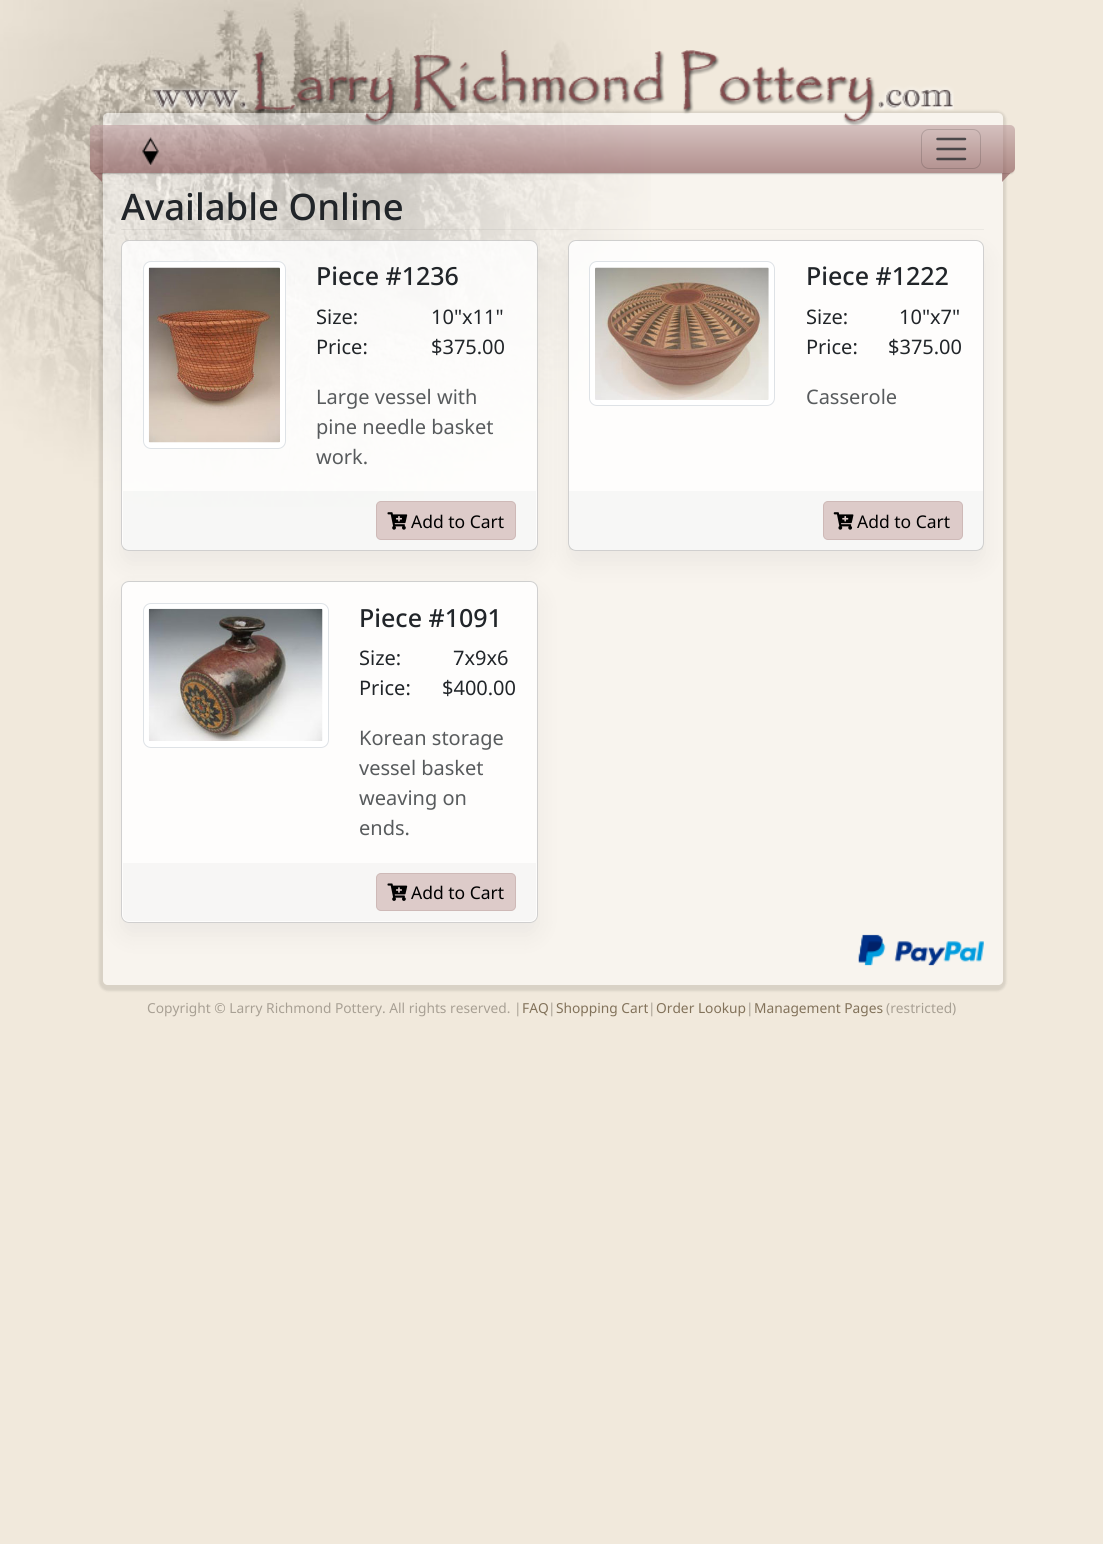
#include <cairo/cairo.h>
#include <math.h>
#include <stddef.h>

typedef struct { double x, y; const char *s; } line_t;
static cairo_t *cr;

static void rgb(unsigned color)
{
	cairo_set_source_rgb(cr, (color >> 16) / 255.0, (color >> 8 & 255) / 255.0, (color & 255) / 255.0);
}

static void rrect(double x, double y, double w, double h, double r)
{
	cairo_new_sub_path(cr);
	cairo_arc(cr, x + w - r, y + h - r, r, 0, M_PI / 2);
	cairo_arc(cr, x + r, y + h - r, r, M_PI / 2, M_PI);
	cairo_arc(cr, x + r, y + r, r, M_PI, 1.5 * M_PI);
	cairo_arc(cr, x + w - r, y + r, r, 1.5 * M_PI, 2 * M_PI);
	cairo_close_path(cr);
}

static void soft_shadow(double x, double y, double w, double h, double r, double blur, double alpha)
{
	cairo_push_group_with_content(cr, CAIRO_CONTENT_ALPHA);
	cairo_set_operator(cr, CAIRO_OPERATOR_SOURCE);
	for (int i = 15; i >= -15 && fmin(w, h) + blur * i / 3 > 0; i -= 2) {
		double e = blur * i / 6;
		cairo_set_source_rgba(cr, 0, 0, 0, alpha * erfc((i - 1) / 8.5) / 2);
		rrect(x - e, y - e, w + 2 * e, h + 2 * e, fmax(0, fmin(r + e + blur * .6, fmin(w, h) / 2 + e)));
		cairo_fill(cr);
	}
	cairo_pattern_t *soft = cairo_pop_group(cr);
	cairo_mask(cr, soft);
	cairo_pattern_destroy(soft);
}

static void image(const char *path, double x, double y, double w, double h)
{
	cairo_surface_t *image = cairo_image_surface_create_from_png(path);
	cairo_save(cr);
	cairo_set_source_surface(cr, image, x, y);
	cairo_rectangle(cr, x, y, w, h);
	cairo_fill(cr);
	cairo_restore(cr);
	cairo_surface_destroy(image);
}

int main(void) {
	cairo_surface_t *surface = cairo_image_surface_create(CAIRO_FORMAT_RGB24, 1103, 1544);
	cr = cairo_create(surface);
	cairo_font_options_t *options = cairo_font_options_create();
	cairo_font_options_set_hint_metrics(options, CAIRO_HINT_METRICS_OFF);
	cairo_font_options_set_hint_style(options, CAIRO_HINT_STYLE_NONE);
	cairo_set_font_options(cr, options);
	cairo_set_miter_limit(cr, 4);
	cairo_pattern_t *gradient;
	rgb(0xf1e9dc);
	cairo_paint(cr);
	image("img/1.png", 0, 0, 651, 507);
	cairo_save(cr);
	cairo_set_fill_rule(cr, CAIRO_FILL_RULE_EVEN_ODD);
	cairo_new_path(cr);
	cairo_move_to(cr, 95, 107);
	cairo_line_to(cr, 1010, 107);
	cairo_line_to(cr, 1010, 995);
	cairo_line_to(cr, 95, 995);
	cairo_close_path(cr);
	cairo_move_to(cr, 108, 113);
	cairo_line_to(cr, 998, 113);
	cairo_curve_to(cr, 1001, 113, 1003, 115, 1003, 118);
	cairo_line_to(cr, 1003, 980);
	cairo_curve_to(cr, 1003, 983, 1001, 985, 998, 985);
	cairo_line_to(cr, 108, 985);
	cairo_curve_to(cr, 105, 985, 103, 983, 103, 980);
	cairo_line_to(cr, 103, 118);
	cairo_curve_to(cr, 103, 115, 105, 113, 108, 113);
	cairo_close_path(cr);
	cairo_clip(cr);
	rgb(0x000000);
	soft_shadow(99, 111, 907, 880, 9, 1, 0.1);
	cairo_restore(cr);
	cairo_set_source_rgba(cr, 1, 1, 1, 0.5);
	rrect(103, 113, 900, 872, 5);
	cairo_fill(cr);
	image("img/2.png", 150, 50, 804, 76);
	cairo_save(cr);
	cairo_set_fill_rule(cr, CAIRO_FILL_RULE_EVEN_ODD);
	cairo_new_path(cr);
	cairo_move_to(cr, 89, 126);
	cairo_line_to(cr, 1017, 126);
	cairo_line_to(cr, 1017, 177);
	cairo_line_to(cr, 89, 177);
	cairo_close_path(cr);
	cairo_move_to(cr, 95, 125);
	cairo_line_to(cr, 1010, 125);
	cairo_curve_to(cr, 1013, 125, 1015, 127, 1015, 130);
	cairo_line_to(cr, 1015, 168);
	cairo_curve_to(cr, 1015, 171, 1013, 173, 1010, 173);
	cairo_line_to(cr, 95, 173);
	cairo_curve_to(cr, 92, 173, 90, 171, 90, 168);
	cairo_line_to(cr, 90, 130);
	cairo_curve_to(cr, 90, 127, 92, 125, 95, 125);
	cairo_close_path(cr);
	cairo_clip(cr);
	rgb(0x000000);
	soft_shadow(93, 130, 920, 43, 2.5, 1, 0.5);
	cairo_restore(cr);
	gradient = cairo_pattern_create_linear(553, 125, 553, 173);
	cairo_pattern_add_color_stop_rgba(gradient, 0, 0.745, 0.62, 0.624, 0.6);
	cairo_pattern_add_color_stop_rgba(gradient, 1, 0.51, 0.294, 0.302, 0.6);
	cairo_set_source(cr, gradient);
	cairo_pattern_destroy(gradient);
	rrect(90, 125, 925, 48, 5);
	cairo_fill(cr);
	image("img/3.png", 142, 137, 17, 28);
	rrect(921.5, 129.5, 59, 39, 7.5);
	cairo_set_source_rgba(cr, 0, 0, 0, 0.15);
	cairo_set_line_width(cr, 1);
	cairo_stroke(cr);
	cairo_new_path(cr);
	cairo_move_to(cr, 937.5, 139);
	cairo_line_to(cr, 965, 139);
	cairo_move_to(cr, 937.5, 149);
	cairo_line_to(cr, 965, 149);
	cairo_move_to(cr, 937.5, 159);
	cairo_line_to(cr, 965, 159);
	cairo_set_source_rgba(cr, 0.129, 0.145, 0.161, 0.75);
	cairo_set_line_width(cr, 2.5);
	cairo_set_line_cap(cr, CAIRO_LINE_CAP_ROUND);
	cairo_stroke(cr);
	cairo_set_source_rgba(cr, 0.51, 0.294, 0.302, 0.6);
	cairo_new_path(cr);
	cairo_move_to(cr, 102, 182);
	cairo_line_to(cr, 93, 173);
	cairo_line_to(cr, 102, 173);
	cairo_close_path(cr);
	cairo_fill(cr);
	cairo_new_path(cr);
	cairo_move_to(cr, 1010.5, 173);
	cairo_line_to(cr, 1002, 182);
	cairo_line_to(cr, 1002, 173);
	cairo_close_path(cr);
	cairo_fill(cr);
	cairo_set_source_rgba(cr, 0, 0, 0, 0.05);
	cairo_rectangle(cr, 121, 229, 863, 1);
	cairo_fill(cr);
	cairo_save(cr);
	cairo_set_fill_rule(cr, CAIRO_FILL_RULE_EVEN_ODD);
	cairo_new_path(cr);
	cairo_move_to(cr, 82, 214);
	cairo_line_to(cr, 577, 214);
	cairo_line_to(cr, 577, 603);
	cairo_line_to(cr, 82, 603);
	cairo_close_path(cr);
	cairo_move_to(cr, 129, 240);
	cairo_line_to(cr, 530, 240);
	cairo_curve_to(cr, 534.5, 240, 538, 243.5, 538, 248);
	cairo_line_to(cr, 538, 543);
	cairo_curve_to(cr, 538, 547.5, 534.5, 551, 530, 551);
	cairo_line_to(cr, 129, 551);
	cairo_curve_to(cr, 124.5, 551, 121, 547.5, 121, 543);
	cairo_line_to(cr, 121, 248);
	cairo_curve_to(cr, 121, 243.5, 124.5, 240, 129, 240);
	cairo_close_path(cr);
	cairo_clip(cr);
	rgb(0x000000);
	soft_shadow(121, 253, 417, 311, 8, 12.5, 0.05);
	cairo_restore(cr);
	cairo_set_source_rgba(cr, 1, 1, 1, 0.8);
	rrect(121, 240, 417, 311, 8);
	cairo_fill(cr);
	rrect(121.5, 240.5, 416, 310, 7.5);
	cairo_set_source_rgba(cr, 0, 0, 0, 0.18);
	cairo_set_line_width(cr, 1);
	cairo_set_line_cap(cr, CAIRO_LINE_CAP_BUTT);
	cairo_stroke(cr);
	rgb(0xffffff);
	rrect(143.5, 261.5, 142, 187, 7.5);
	cairo_fill_preserve(cr);
	rgb(0xdee2e6);
	cairo_stroke(cr);
	image("img/4.png", 148, 267, 132, 176);
	cairo_set_source_rgba(cr, 0.129, 0.145, 0.161, 0.03);
	cairo_rectangle(cr, 123, 491, 413, 59);
	cairo_fill(cr);
	rgb(0xddcbc9);
	rrect(376.5, 501.5, 139, 38, 4.5);
	cairo_fill_preserve(cr);
	rgb(0xceb9b7);
	cairo_stroke(cr);
	image("img/5.png", 387, 512, 21, 18);
	cairo_save(cr);
	cairo_set_fill_rule(cr, CAIRO_FILL_RULE_EVEN_ODD);
	cairo_new_path(cr);
	cairo_move_to(cr, 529, 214);
	cairo_line_to(cr, 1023, 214);
	cairo_line_to(cr, 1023, 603);
	cairo_line_to(cr, 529, 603);
	cairo_close_path(cr);
	cairo_move_to(cr, 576, 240);
	cairo_line_to(cr, 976, 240);
	cairo_curve_to(cr, 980.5, 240, 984, 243.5, 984, 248);
	cairo_line_to(cr, 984, 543);
	cairo_curve_to(cr, 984, 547.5, 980.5, 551, 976, 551);
	cairo_line_to(cr, 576, 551);
	cairo_curve_to(cr, 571.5, 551, 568, 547.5, 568, 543);
	cairo_line_to(cr, 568, 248);
	cairo_curve_to(cr, 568, 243.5, 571.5, 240, 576, 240);
	cairo_close_path(cr);
	cairo_clip(cr);
	rgb(0x000000);
	soft_shadow(568, 253, 416, 311, 8, 12.5, 0.05);
	cairo_restore(cr);
	cairo_set_source_rgba(cr, 1, 1, 1, 0.8);
	rrect(568, 240, 416, 311, 8);
	cairo_fill(cr);
	rrect(568.5, 240.5, 415, 310, 7.5);
	cairo_set_source_rgba(cr, 0, 0, 0, 0.18);
	cairo_stroke(cr);
	rgb(0xffffff);
	rrect(589.5, 261.5, 185, 144, 7.5);
	cairo_fill_preserve(cr);
	rgb(0xdee2e6);
	cairo_stroke(cr);
	image("img/6.png", 595, 267, 174, 133);
	cairo_set_source_rgba(cr, 0.129, 0.145, 0.161, 0.03);
	cairo_rectangle(cr, 569, 491, 414, 59);
	cairo_fill(cr);
	rgb(0xddcbc9);
	rrect(823.5, 501.5, 139, 38, 4.5);
	cairo_fill_preserve(cr);
	rgb(0xceb9b7);
	cairo_stroke(cr);
	image("img/7.png", 833, 512, 21, 18);
	cairo_save(cr);
	cairo_set_fill_rule(cr, CAIRO_FILL_RULE_EVEN_ODD);
	cairo_new_path(cr);
	cairo_move_to(cr, 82, 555);
	cairo_line_to(cr, 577, 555);
	cairo_line_to(cr, 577, 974);
	cairo_line_to(cr, 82, 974);
	cairo_close_path(cr);
	cairo_move_to(cr, 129, 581);
	cairo_line_to(cr, 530, 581);
	cairo_curve_to(cr, 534.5, 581, 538, 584.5, 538, 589);
	cairo_line_to(cr, 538, 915);
	cairo_curve_to(cr, 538, 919.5, 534.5, 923, 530, 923);
	cairo_line_to(cr, 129, 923);
	cairo_curve_to(cr, 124.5, 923, 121, 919.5, 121, 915);
	cairo_line_to(cr, 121, 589);
	cairo_curve_to(cr, 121, 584.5, 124.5, 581, 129, 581);
	cairo_close_path(cr);
	cairo_clip(cr);
	rgb(0x000000);
	soft_shadow(121, 594, 417, 341, 8, 12.5, 0.05);
	cairo_restore(cr);
	cairo_set_source_rgba(cr, 1, 1, 1, 0.8);
	rrect(121, 581, 417, 342, 8);
	cairo_fill(cr);
	rrect(121.5, 581.5, 416, 341, 7.5);
	cairo_set_source_rgba(cr, 0, 0, 0, 0.18);
	cairo_stroke(cr);
	rgb(0xffffff);
	rrect(143.5, 603.5, 185, 144, 7.5);
	cairo_fill_preserve(cr);
	rgb(0xdee2e6);
	cairo_stroke(cr);
	image("img/8.png", 148, 608, 175, 133);
	rgb(0xf7f6f5);
	cairo_new_path(cr);
	cairo_move_to(cr, 123, 863);
	cairo_line_to(cr, 536, 863);
	cairo_line_to(cr, 536, 915);
	cairo_curve_to(cr, 536, 918.5, 533.5, 921, 530, 921);
	cairo_line_to(cr, 129, 921);
	cairo_curve_to(cr, 125.5, 921, 123, 918.5, 123, 915);
	cairo_close_path(cr);
	cairo_fill(cr);
	rgb(0xddcbc9);
	rrect(376.5, 873.5, 139, 37, 4.5);
	cairo_fill_preserve(cr);
	rgb(0xceb9b7);
	cairo_stroke(cr);
	image("img/9.png", 387, 883, 21, 18);
	image("img/10.png", 858, 934, 126, 32);
	cairo_select_font_face(cr, "Noto Sans Medium", CAIRO_FONT_SLANT_NORMAL, CAIRO_FONT_WEIGHT_NORMAL);
	cairo_set_font_size(cr, 36.5);
	rgb(0x212529);
	cairo_move_to(cr, 121, 220);
	cairo_show_text(cr, "Available Online");
	cairo_set_font_size(cr, 25);
	cairo_move_to(cr, 316, 285);
	cairo_show_text(cr, "Piece #1236");
	cairo_select_font_face(cr, "Noto Sans", CAIRO_FONT_SLANT_NORMAL, CAIRO_FONT_WEIGHT_NORMAL);
	cairo_set_font_size(cr, 20);
	{
		static const line_t items[] = {
			{316, 324, "Size:"},
			{431, 324, "10\"x11\""},
			{316, 354, "Price:"},
			{431, 354, "$375.00"},
		};
		for (size_t i = 0; i < sizeof items / sizeof *items; i++) {
			cairo_move_to(cr, items[i].x, items[i].y);
			cairo_show_text(cr, items[i].s);
		}
	}
	rgb(0x585b5d);
	{
		static const line_t items[] = {
			{316, 404, "Large vessel with"},
			{316, 434, "pine needle basket"},
			{316, 464, "work."},
		};
		for (size_t i = 0; i < sizeof items / sizeof *items; i++) {
			cairo_move_to(cr, items[i].x, items[i].y);
			cairo_show_text(cr, items[i].s);
		}
	}
	cairo_set_font_size(cr, 17.5);
	rgb(0x000000);
	cairo_move_to(cr, 411, 528);
	cairo_show_text(cr, "Add to Cart");
	cairo_select_font_face(cr, "Noto Sans Medium", CAIRO_FONT_SLANT_NORMAL, CAIRO_FONT_WEIGHT_NORMAL);
	cairo_set_font_size(cr, 25);
	rgb(0x212529);
	cairo_move_to(cr, 806, 285);
	cairo_show_text(cr, "Piece #1222");
	cairo_select_font_face(cr, "Noto Sans", CAIRO_FONT_SLANT_NORMAL, CAIRO_FONT_WEIGHT_NORMAL);
	cairo_set_font_size(cr, 20);
	{
		static const line_t items[] = {
			{806, 324, "Size:"},
			{899, 324, "10\"x7\""},
			{806, 354, "Price:"},
			{888, 354, "$375.00"},
		};
		for (size_t i = 0; i < sizeof items / sizeof *items; i++) {
			cairo_move_to(cr, items[i].x, items[i].y);
			cairo_show_text(cr, items[i].s);
		}
	}
	rgb(0x585b5d);
	cairo_move_to(cr, 806, 404);
	cairo_show_text(cr, "Casserole");
	cairo_set_font_size(cr, 17.5);
	rgb(0x000000);
	cairo_move_to(cr, 857, 528);
	cairo_show_text(cr, "Add to Cart");
	cairo_select_font_face(cr, "Noto Sans Medium", CAIRO_FONT_SLANT_NORMAL, CAIRO_FONT_WEIGHT_NORMAL);
	cairo_set_font_size(cr, 25);
	rgb(0x212529);
	cairo_move_to(cr, 359, 627);
	cairo_show_text(cr, "Piece #1091");
	cairo_select_font_face(cr, "Noto Sans", CAIRO_FONT_SLANT_NORMAL, CAIRO_FONT_WEIGHT_NORMAL);
	cairo_set_font_size(cr, 20);
	{
		static const line_t items[] = {
			{359, 665, "Size:"},
			{453, 665, "7x9x6"},
			{359, 695, "Price:"},
			{442, 695, "$400.00"},
		};
		for (size_t i = 0; i < sizeof items / sizeof *items; i++) {
			cairo_move_to(cr, items[i].x, items[i].y);
			cairo_show_text(cr, items[i].s);
		}
	}
	rgb(0x585b5d);
	{
		static const line_t items[] = {
			{359, 745, "Korean storage"},
			{359, 775, "vessel basket"},
			{359, 805, "weaving on"},
			{359, 835, "ends."},
		};
		for (size_t i = 0; i < sizeof items / sizeof *items; i++) {
			cairo_move_to(cr, items[i].x, items[i].y);
			cairo_show_text(cr, items[i].s);
		}
	}
	cairo_set_font_size(cr, 17.5);
	rgb(0x000000);
	cairo_move_to(cr, 411, 899);
	cairo_show_text(cr, "Add to Cart");
	cairo_set_font_size(cr, 13.75);
	rgb(0xa8a094);
	cairo_move_to(cr, 147, 1013);
	cairo_show_text(cr, "Copyright © Larry Richmond Pottery. All rights reserved. |");
	rgb(0x82725a);
	cairo_move_to(cr, 522, 1013);
	cairo_show_text(cr, "FAQ");
	rgb(0xa8a094);
	cairo_move_to(cr, 548, 1013);
	cairo_show_text(cr, "|");
	rgb(0x82725a);
	cairo_move_to(cr, 556, 1013);
	cairo_show_text(cr, "Shopping Cart");
	rgb(0xa8a094);
	cairo_move_to(cr, 648, 1013);
	cairo_show_text(cr, "|");
	rgb(0x82725a);
	cairo_move_to(cr, 656, 1013);
	cairo_show_text(cr, "Order Lookup");
	rgb(0xa8a094);
	cairo_move_to(cr, 746, 1013);
	cairo_show_text(cr, "|");
	rgb(0x82725a);
	cairo_move_to(cr, 754, 1013);
	cairo_show_text(cr, "Management Pages");
	rgb(0xa8a094);
	cairo_move_to(cr, 886, 1013);
	cairo_show_text(cr, "(restricted)");
	cairo_surface_write_to_png(surface, "page.png");
	cairo_font_options_destroy(options);
	cairo_destroy(cr);
	cairo_surface_destroy(surface);
	return 0;
}
